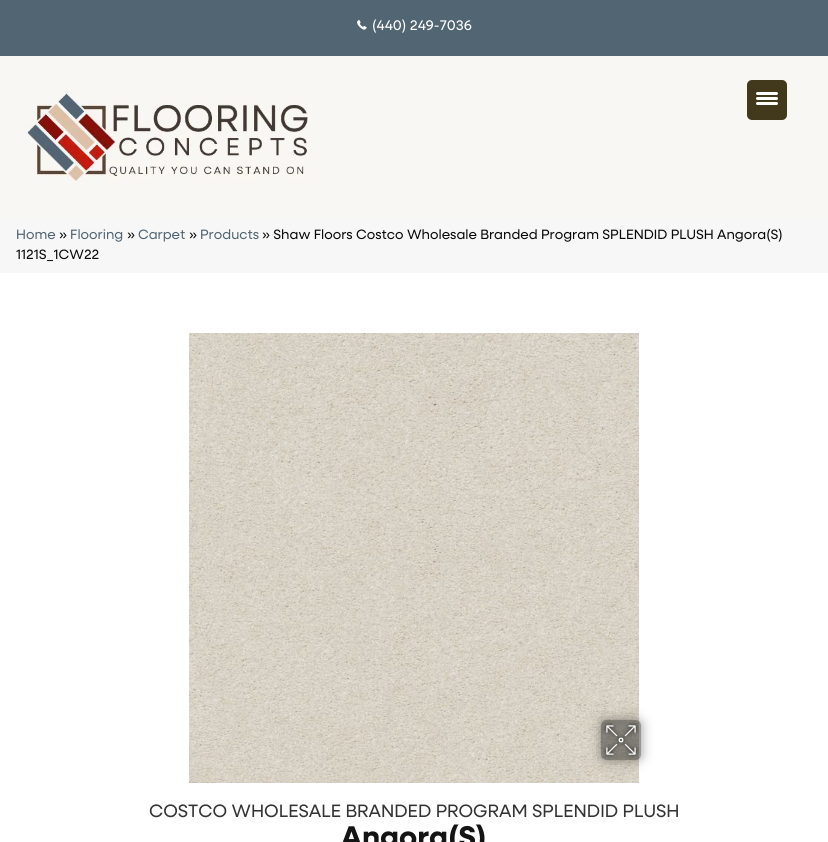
#include <cairo/cairo.h>
#include <math.h>
#include <stddef.h>

static cairo_t *cr;

static void rgb(unsigned color)
{
	cairo_set_source_rgb(cr, (color >> 16) / 255.0, (color >> 8 & 255) / 255.0, (color & 255) / 255.0);
}

static void rrect(double x, double y, double w, double h, double r)
{
	cairo_new_sub_path(cr);
	cairo_arc(cr, x + w - r, y + h - r, r, 0, M_PI / 2);
	cairo_arc(cr, x + r, y + h - r, r, M_PI / 2, M_PI);
	cairo_arc(cr, x + r, y + r, r, M_PI, 1.5 * M_PI);
	cairo_arc(cr, x + w - r, y + r, r, 1.5 * M_PI, 2 * M_PI);
	cairo_close_path(cr);
}

static void soft_shadow(double x, double y, double w, double h, double r, double blur, double alpha)
{
	cairo_push_group_with_content(cr, CAIRO_CONTENT_ALPHA);
	cairo_set_operator(cr, CAIRO_OPERATOR_SOURCE);
	for (int i = 15; i >= -15 && fmin(w, h) + blur * i / 3 > 0; i -= 2) {
		double e = blur * i / 6;
		cairo_set_source_rgba(cr, 0, 0, 0, alpha * erfc((i - 1) / 8.5) / 2);
		rrect(x - e, y - e, w + 2 * e, h + 2 * e, fmax(0, fmin(r + e + blur * .6, fmin(w, h) / 2 + e)));
		cairo_fill(cr);
	}
	cairo_pattern_t *soft = cairo_pop_group(cr);
	cairo_mask(cr, soft);
	cairo_pattern_destroy(soft);
}

static void image(const char *path, double x, double y, double w, double h)
{
	cairo_surface_t *image = cairo_image_surface_create_from_png(path);
	cairo_save(cr);
	cairo_set_source_surface(cr, image, x, y);
	cairo_rectangle(cr, x, y, w, h);
	cairo_fill(cr);
	cairo_restore(cr);
	cairo_surface_destroy(image);
}

int main(void) {
	cairo_surface_t *surface = cairo_image_surface_create(CAIRO_FORMAT_RGB24, 828, 842);
	cr = cairo_create(surface);
	cairo_font_options_t *options = cairo_font_options_create();
	cairo_font_options_set_hint_metrics(options, CAIRO_HINT_METRICS_OFF);
	cairo_font_options_set_hint_style(options, CAIRO_HINT_STYLE_NONE);
	cairo_set_font_options(cr, options);
	cairo_set_miter_limit(cr, 4);
	rgb(0xffffff);
	cairo_paint(cr);
	rgb(0x526572);
	cairo_rectangle(cr, 0, 0, 828, 56);
	cairo_fill(cr);
	image("img/1.png", 357, 19, 10, 11);
	rgb(0xf8f7f3);
	cairo_rectangle(cr, 0, 56, 828, 162);
	cairo_fill(cr);
	image("img/2.png", 25, 93, 283, 90);
	rgb(0xf7f7f7);
	cairo_rectangle(cr, 0, 218, 828, 55);
	cairo_fill(cr);
	image("img/3.png", 189, 333, 450, 450);
	cairo_save(cr);
	cairo_set_fill_rule(cr, CAIRO_FILL_RULE_EVEN_ODD);
	cairo_new_path(cr);
	cairo_move_to(cr, 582, 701);
	cairo_line_to(cr, 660, 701);
	cairo_line_to(cr, 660, 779);
	cairo_line_to(cr, 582, 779);
	cairo_close_path(cr);
	cairo_move_to(cr, 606, 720);
	cairo_line_to(cr, 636, 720);
	cairo_curve_to(cr, 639, 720, 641, 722, 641, 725);
	cairo_line_to(cr, 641, 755);
	cairo_curve_to(cr, 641, 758, 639, 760, 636, 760);
	cairo_line_to(cr, 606, 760);
	cairo_curve_to(cr, 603, 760, 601, 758, 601, 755);
	cairo_line_to(cr, 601, 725);
	cairo_curve_to(cr, 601, 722, 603, 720, 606, 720);
	cairo_close_path(cr);
	cairo_clip(cr);
	rgb(0x000000);
	soft_shadow(601, 720, 40, 40, 5, 6, 0.41);
	cairo_restore(cr);
	cairo_set_source_rgba(cr, 0, 0, 0, 0.4);
	rrect(601, 720, 40, 40, 5);
	cairo_fill(cr);
	image("img/4.png", 602, 721, 38, 38);
	rgb(0x42391d);
	rrect(747, 80, 40, 40, 5);
	cairo_fill(cr);
	rgb(0xffffff);
	rrect(756, 97, 22, 3, 1.5);
	cairo_fill(cr);
	rrect(756, 92, 22, 3, 1.5);
	cairo_fill(cr);
	rrect(756, 102, 22, 3, 1.5);
	cairo_fill(cr);
	cairo_select_font_face(cr, "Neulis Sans", CAIRO_FONT_SLANT_NORMAL, CAIRO_FONT_WEIGHT_NORMAL);
	cairo_set_font_size(cr, 14);
	cairo_move_to(cr, 372, 30);
	cairo_show_text(cr, "(440) 249-7036");
	cairo_set_font_size(cr, 13.6);
	rgb(0x526572);
	cairo_move_to(cr, 16, 239);
	cairo_show_text(cr, "Home");
	rgb(0x0a0a0a);
	cairo_move_to(cr, 59, 239);
	cairo_show_text(cr, "»");
	rgb(0x526572);
	cairo_move_to(cr, 70, 239);
	cairo_show_text(cr, "Flooring");
	rgb(0x0a0a0a);
	cairo_move_to(cr, 127, 239);
	cairo_show_text(cr, "»");
	rgb(0x526572);
	cairo_move_to(cr, 138, 239);
	cairo_show_text(cr, "Carpet");
	rgb(0x0a0a0a);
	cairo_move_to(cr, 189, 239);
	cairo_show_text(cr, "»");
	rgb(0x526572);
	cairo_move_to(cr, 200, 239);
	cairo_show_text(cr, "Products");
	rgb(0x0a0a0a);
	cairo_move_to(cr, 262, 239);
	cairo_show_text(cr, "» Shaw Floors Costco Wholesale Branded Program SPLENDID PLUSH Angora(S)");
	cairo_move_to(cr, 16, 259);
	cairo_show_text(cr, "1121S_1CW22");
	cairo_set_font_size(cr, 18);
	rgb(0x333333);
	cairo_move_to(cr, 149, 817);
	cairo_show_text(cr, "COSTCO WHOLESALE BRANDED PROGRAM SPLENDID PLUSH");
	cairo_select_font_face(cr, "Neulis Sans", CAIRO_FONT_SLANT_NORMAL, CAIRO_FONT_WEIGHT_BOLD);
	cairo_set_font_size(cr, 30);
	rgb(0x141414);
	cairo_move_to(cr, 341, 847);
	cairo_show_text(cr, "Angora(S)");
	cairo_surface_write_to_png(surface, "page.png");
	cairo_font_options_destroy(options);
	cairo_destroy(cr);
	cairo_surface_destroy(surface);
	return 0;
}
